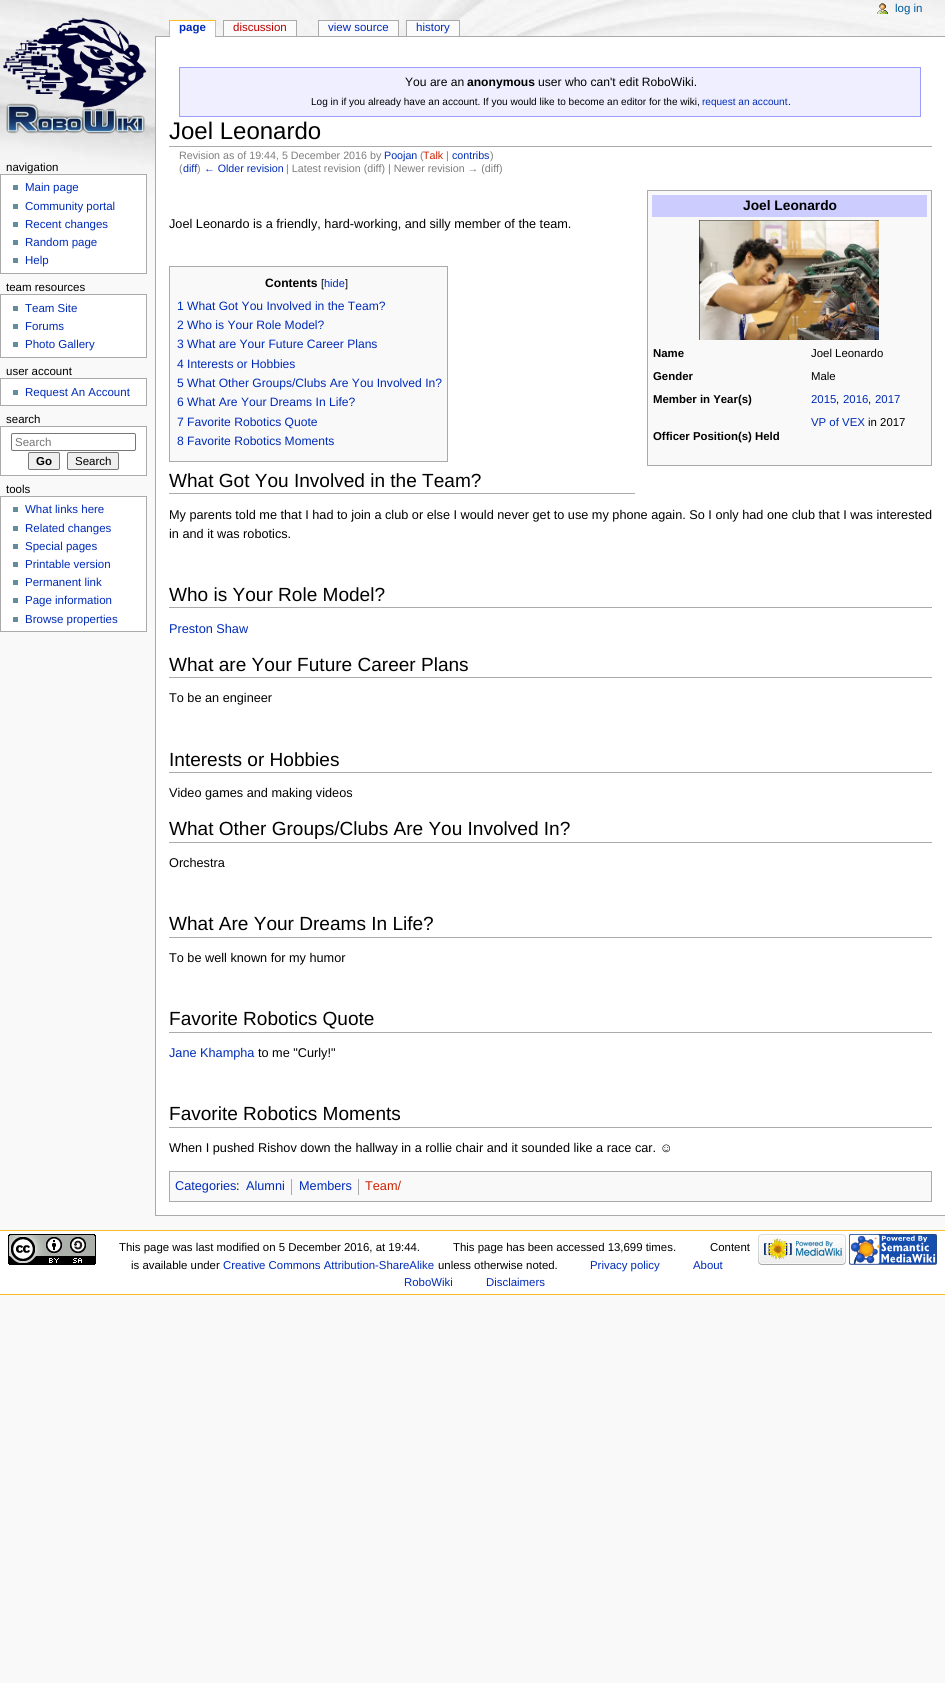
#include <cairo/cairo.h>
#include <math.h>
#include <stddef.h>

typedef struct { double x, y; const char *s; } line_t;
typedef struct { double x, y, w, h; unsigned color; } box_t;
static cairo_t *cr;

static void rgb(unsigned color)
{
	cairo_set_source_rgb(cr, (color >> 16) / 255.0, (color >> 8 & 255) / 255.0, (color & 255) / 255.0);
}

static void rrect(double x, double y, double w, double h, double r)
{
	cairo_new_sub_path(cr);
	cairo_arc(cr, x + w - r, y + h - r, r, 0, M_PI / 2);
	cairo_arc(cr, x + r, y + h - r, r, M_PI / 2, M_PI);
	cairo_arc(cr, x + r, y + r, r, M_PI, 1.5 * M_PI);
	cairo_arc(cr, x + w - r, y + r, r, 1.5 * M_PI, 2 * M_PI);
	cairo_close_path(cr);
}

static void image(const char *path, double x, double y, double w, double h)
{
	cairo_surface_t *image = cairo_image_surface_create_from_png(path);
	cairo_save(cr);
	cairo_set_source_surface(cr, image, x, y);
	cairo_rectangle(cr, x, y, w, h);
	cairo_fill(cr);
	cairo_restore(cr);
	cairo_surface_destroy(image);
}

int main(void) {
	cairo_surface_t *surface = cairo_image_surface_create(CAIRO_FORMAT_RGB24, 945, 1683);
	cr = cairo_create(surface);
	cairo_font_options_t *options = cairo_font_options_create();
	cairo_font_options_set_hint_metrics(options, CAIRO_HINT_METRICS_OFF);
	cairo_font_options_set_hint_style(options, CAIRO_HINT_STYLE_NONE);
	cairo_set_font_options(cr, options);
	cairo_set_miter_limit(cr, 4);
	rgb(0xf9f9f9);
	cairo_paint(cr);
	image("img/1.png", 0, 0, 945, 194);
	image("img/2.png", 877, 3, 11, 11);
	image("img/3.png", 3, 17, 144, 117);
	{
		static const box_t items[] = {
			{169, 20, 47, 1, 0xfabd23},
			{215, 20, 1, 16, 0xfabd23},
			{169, 20, 1, 16, 0xfabd23},
			{155, 36, 790, 1, 0xaaaaaa},
			{170, 21, 45, 16, 0xffffff},
			{223, 20, 74, 1, 0xaaaaaa},
			{296, 20, 1, 16, 0xaaaaaa},
			{223, 20, 1, 16, 0xaaaaaa},
			{224, 21, 72, 15, 0xfbfbfb},
			{318, 20, 81, 1, 0xaaaaaa},
			{398, 20, 1, 16, 0xaaaaaa},
			{318, 20, 1, 16, 0xaaaaaa},
			{319, 21, 79, 15, 0xfbfbfb},
			{406, 20, 54, 1, 0xaaaaaa},
			{459, 20, 1, 16, 0xaaaaaa},
			{406, 20, 1, 16, 0xaaaaaa},
			{407, 21, 52, 15, 0xfbfbfb},
		};
		for (size_t i = 0; i < sizeof items / sizeof *items; i++) {
			rgb(items[i].color);
			cairo_rectangle(cr, items[i].x, items[i].y, items[i].w, items[i].h);
			cairo_fill(cr);
		}
	}
	rgb(0xffffff);
	cairo_rectangle(cr, 0.5, 174.5, 146, 99);
	cairo_fill_preserve(cr);
	rgb(0xaaaaaa);
	cairo_set_line_width(cr, 1);
	cairo_stroke(cr);
	{
		static const box_t items[] = {
			{13, 185, 5, 5, 0x638c9c},
			{13, 204, 5, 5, 0x638c9c},
			{13, 222, 5, 5, 0x638c9c},
			{13, 240, 5, 5, 0x638c9c},
			{13, 258, 5, 5, 0x638c9c},
		};
		for (size_t i = 0; i < sizeof items / sizeof *items; i++) {
			rgb(items[i].color);
			cairo_rectangle(cr, items[i].x, items[i].y, items[i].w, items[i].h);
			cairo_fill(cr);
		}
	}
	rgb(0xffffff);
	cairo_rectangle(cr, 0.5, 294.5, 146, 63);
	cairo_fill_preserve(cr);
	rgb(0xaaaaaa);
	cairo_stroke(cr);
	{
		static const box_t items[] = {
			{13, 306, 5, 5, 0x638c9c},
			{13, 324, 5, 5, 0x638c9c},
			{13, 342, 5, 5, 0x638c9c},
		};
		for (size_t i = 0; i < sizeof items / sizeof *items; i++) {
			rgb(items[i].color);
			cairo_rectangle(cr, items[i].x, items[i].y, items[i].w, items[i].h);
			cairo_fill(cr);
		}
	}
	rgb(0xffffff);
	cairo_rectangle(cr, 0.5, 378.5, 146, 27);
	cairo_fill_preserve(cr);
	rgb(0xaaaaaa);
	cairo_stroke(cr);
	rgb(0x638c9c);
	cairo_rectangle(cr, 13, 390, 5, 5);
	cairo_fill(cr);
	rgb(0xffffff);
	cairo_rectangle(cr, 0.5, 426.5, 146, 49);
	cairo_fill_preserve(cr);
	rgb(0xaaaaaa);
	cairo_stroke(cr);
	rrect(11.5, 433.5, 124, 17, 1.5);
	rgb(0x767676);
	cairo_stroke(cr);
	rgb(0xefefef);
	rrect(28.5, 452.5, 31, 17, 1.5);
	cairo_fill_preserve(cr);
	rgb(0x767676);
	cairo_stroke(cr);
	rgb(0xefefef);
	rrect(67.5, 452.5, 51, 17, 1.5);
	cairo_fill_preserve(cr);
	rgb(0x767676);
	cairo_stroke(cr);
	rgb(0xffffff);
	cairo_rectangle(cr, 0.5, 496.5, 146, 135);
	cairo_fill_preserve(cr);
	rgb(0xaaaaaa);
	cairo_stroke(cr);
	{
		static const box_t items[] = {
			{13, 507, 5, 5, 0x638c9c},
			{13, 526, 5, 5, 0x638c9c},
			{13, 544, 5, 5, 0x638c9c},
			{13, 562, 5, 5, 0x638c9c},
			{13, 580, 5, 5, 0x638c9c},
			{13, 598, 5, 5, 0x638c9c},
			{13, 617, 5, 5, 0x638c9c},
			{156, 37, 789, 1178, 0xffffff},
			{155, 1215, 790, 1, 0xaaaaaa},
			{155, 36, 1, 1180, 0xaaaaaa},
		};
		for (size_t i = 0; i < sizeof items / sizeof *items; i++) {
			rgb(items[i].color);
			cairo_rectangle(cr, items[i].x, items[i].y, items[i].w, items[i].h);
			cairo_fill(cr);
		}
	}
	rgb(0xefefff);
	cairo_rectangle(cr, 179.5, 67.5, 741, 49);
	cairo_fill_preserve(cr);
	rgb(0x9c9eff);
	cairo_stroke(cr);
	rgb(0xaaaaaa);
	cairo_rectangle(cr, 169, 146, 763, 1);
	cairo_fill(cr);
	rgb(0xf9f9f9);
	cairo_rectangle(cr, 647.5, 190.5, 284, 275);
	cairo_fill_preserve(cr);
	rgb(0xaaaaaa);
	cairo_stroke(cr);
	rgb(0xccccff);
	cairo_rectangle(cr, 652, 195, 275, 22);
	cairo_fill(cr);
	image("img/4.png", 699, 220, 180, 120);
	rgb(0xf9f9f9);
	cairo_rectangle(cr, 169.5, 266.5, 278, 195);
	cairo_fill_preserve(cr);
	rgb(0xaaaaaa);
	cairo_stroke(cr);
	{
		static const box_t items[] = {
			{169, 493, 466, 1, 0xaaaaaa},
			{169, 607, 763, 1, 0xaaaaaa},
			{169, 677, 763, 1, 0xaaaaaa},
			{169, 772, 763, 1, 0xaaaaaa},
			{169, 842, 763, 1, 0xaaaaaa},
			{169, 937, 763, 1, 0xaaaaaa},
			{169, 1032, 763, 1, 0xaaaaaa},
			{169, 1127, 763, 1, 0xaaaaaa},
		};
		for (size_t i = 0; i < sizeof items / sizeof *items; i++) {
			rgb(items[i].color);
			cairo_rectangle(cr, items[i].x, items[i].y, items[i].w, items[i].h);
			cairo_fill(cr);
		}
	}
	rgb(0xf9f9f9);
	cairo_rectangle(cr, 169.5, 1171.5, 762, 30);
	cairo_fill_preserve(cr);
	rgb(0xaaaaaa);
	cairo_stroke(cr);
	{
		static const box_t items[] = {
			{291, 1179, 1, 16, 0xaaaaaa},
			{358, 1179, 1, 16, 0xaaaaaa},
			{0, 1231, 945, 63, 0xffffff},
			{0, 1230, 945, 1, 0xfabd23},
			{0, 1294, 945, 1, 0xfabd23},
		};
		for (size_t i = 0; i < sizeof items / sizeof *items; i++) {
			rgb(items[i].color);
			cairo_rectangle(cr, items[i].x, items[i].y, items[i].w, items[i].h);
			cairo_fill(cr);
		}
	}
	image("img/5.png", 8, 1234, 88, 31);
	image("img/6.png", 758, 1234, 88, 31);
	image("img/7.png", 849, 1234, 88, 31);
	cairo_select_font_face(cr, "Liberation Sans", CAIRO_FONT_SLANT_NORMAL, CAIRO_FONT_WEIGHT_NORMAL);
	cairo_set_font_size(cr, 11.5);
	rgb(0x005896);
	cairo_move_to(cr, 895, 12);
	cairo_show_text(cr, "log in");
	cairo_select_font_face(cr, "Liberation Sans", CAIRO_FONT_SLANT_NORMAL, CAIRO_FONT_WEIGHT_BOLD);
	rgb(0x002bb8);
	cairo_move_to(cr, 179, 31);
	cairo_show_text(cr, "page");
	cairo_select_font_face(cr, "Liberation Sans", CAIRO_FONT_SLANT_NORMAL, CAIRO_FONT_WEIGHT_NORMAL);
	rgb(0xba0000);
	cairo_move_to(cr, 233, 31);
	cairo_show_text(cr, "discussion");
	rgb(0x002bb8);
	cairo_move_to(cr, 328, 31);
	cairo_show_text(cr, "view source");
	cairo_move_to(cr, 416, 31);
	cairo_show_text(cr, "history");
	rgb(0x000000);
	cairo_move_to(cr, 6, 171);
	cairo_show_text(cr, "navigation");
	rgb(0x002bb8);
	{
		static const line_t items[] = {
			{25, 191, "Main page"},
			{25, 210, "Community portal"},
			{25, 228, "Recent changes"},
			{25, 246, "Random page"},
			{25, 264, "Help"},
		};
		for (size_t i = 0; i < sizeof items / sizeof *items; i++) {
			cairo_move_to(cr, items[i].x, items[i].y);
			cairo_show_text(cr, items[i].s);
		}
	}
	rgb(0x000000);
	cairo_move_to(cr, 6, 291);
	cairo_show_text(cr, "team resources");
	rgb(0x002bb8);
	{
		static const line_t items[] = {
			{25, 312, "Team Site"},
			{25, 330, "Forums"},
			{25, 348, "Photo Gallery"},
		};
		for (size_t i = 0; i < sizeof items / sizeof *items; i++) {
			cairo_move_to(cr, items[i].x, items[i].y);
			cairo_show_text(cr, items[i].s);
		}
	}
	rgb(0x000000);
	cairo_move_to(cr, 6, 375);
	cairo_show_text(cr, "user account");
	rgb(0x002bb8);
	cairo_move_to(cr, 25, 396);
	cairo_show_text(cr, "Request An Account");
	rgb(0x000000);
	cairo_move_to(cr, 6, 423);
	cairo_show_text(cr, "search");
	rgb(0x757575);
	cairo_move_to(cr, 15, 446);
	cairo_show_text(cr, "Search");
	cairo_select_font_face(cr, "Liberation Sans", CAIRO_FONT_SLANT_NORMAL, CAIRO_FONT_WEIGHT_BOLD);
	rgb(0x000000);
	cairo_move_to(cr, 36, 465);
	cairo_show_text(cr, "Go");
	cairo_select_font_face(cr, "Liberation Sans", CAIRO_FONT_SLANT_NORMAL, CAIRO_FONT_WEIGHT_NORMAL);
	cairo_move_to(cr, 75, 465);
	cairo_show_text(cr, "Search");
	cairo_move_to(cr, 6, 493);
	cairo_show_text(cr, "tools");
	rgb(0x002bb8);
	{
		static const line_t items[] = {
			{25, 513, "What links here"},
			{25, 532, "Related changes"},
			{25, 550, "Special pages"},
			{25, 568, "Printable version"},
			{25, 586, "Permanent link"},
			{25, 604, "Page information"},
			{25, 623, "Browse properties"},
		};
		for (size_t i = 0; i < sizeof items / sizeof *items; i++) {
			cairo_move_to(cr, items[i].x, items[i].y);
			cairo_show_text(cr, items[i].s);
		}
	}
	cairo_set_font_size(cr, 12.1);
	rgb(0x000000);
	cairo_move_to(cr, 405, 86);
	cairo_show_text(cr, "You are an");
	cairo_select_font_face(cr, "Liberation Sans", CAIRO_FONT_SLANT_NORMAL, CAIRO_FONT_WEIGHT_BOLD);
	cairo_move_to(cr, 467, 86);
	cairo_show_text(cr, "anonymous");
	cairo_select_font_face(cr, "Liberation Sans", CAIRO_FONT_SLANT_NORMAL, CAIRO_FONT_WEIGHT_NORMAL);
	cairo_move_to(cr, 538, 86);
	cairo_show_text(cr, "user who can't edit RoboWiki.");
	cairo_set_font_size(cr, 10.05);
	cairo_move_to(cr, 311, 105);
	cairo_show_text(cr, "Log in if you already have an account. If you would like to become an editor for the wiki,");
	rgb(0x002bb8);
	cairo_move_to(cr, 702, 105);
	cairo_show_text(cr, "request an account");
	rgb(0x000000);
	cairo_move_to(cr, 788, 105);
	cairo_show_text(cr, ".");
	cairo_set_font_size(cr, 24);
	cairo_move_to(cr, 169, 139);
	cairo_show_text(cr, "Joel Leonardo");
	cairo_set_font_size(cr, 10.7);
	rgb(0x7d7d7d);
	cairo_move_to(cr, 179, 159);
	cairo_show_text(cr, "Revision as of 19:44, 5 December 2016 by");
	rgb(0x002bb8);
	cairo_move_to(cr, 384, 159);
	cairo_show_text(cr, "Poojan");
	rgb(0x7d7d7d);
	cairo_move_to(cr, 420, 159);
	cairo_show_text(cr, "(");
	rgb(0xcc2200);
	cairo_move_to(cr, 423, 159);
	cairo_show_text(cr, "Talk");
	rgb(0x7d7d7d);
	cairo_move_to(cr, 446, 159);
	cairo_show_text(cr, "|");
	rgb(0x002bb8);
	cairo_move_to(cr, 452, 159);
	cairo_show_text(cr, "contribs");
	rgb(0x7d7d7d);
	cairo_move_to(cr, 490, 159);
	cairo_show_text(cr, ")");
	cairo_move_to(cr, 179, 172);
	cairo_show_text(cr, "(");
	rgb(0x002bb8);
	cairo_move_to(cr, 183, 172);
	cairo_show_text(cr, "diff");
	rgb(0x7d7d7d);
	cairo_move_to(cr, 197, 172);
	cairo_show_text(cr, ")");
	rgb(0x002bb8);
	cairo_move_to(cr, 204, 172);
	cairo_show_text(cr, "← Older revision");
	rgb(0x7d7d7d);
	cairo_move_to(cr, 286, 172);
	cairo_show_text(cr, "| Latest revision (diff) | Newer revision → (diff)");
	cairo_set_font_size(cr, 12.7);
	rgb(0x000000);
	cairo_move_to(cr, 169, 228);
	cairo_show_text(cr, "Joel Leonardo is a friendly, hard-working, and silly member of the team.");
	cairo_select_font_face(cr, "Liberation Sans", CAIRO_FONT_SLANT_NORMAL, CAIRO_FONT_WEIGHT_BOLD);
	cairo_set_font_size(cr, 13.75);
	cairo_move_to(cr, 743, 210);
	cairo_show_text(cr, "Joel Leonardo");
	cairo_set_font_size(cr, 11.4);
	cairo_move_to(cr, 653, 357);
	cairo_show_text(cr, "Name");
	cairo_select_font_face(cr, "Liberation Sans", CAIRO_FONT_SLANT_NORMAL, CAIRO_FONT_WEIGHT_NORMAL);
	cairo_move_to(cr, 811, 357);
	cairo_show_text(cr, "Joel Leonardo");
	cairo_select_font_face(cr, "Liberation Sans", CAIRO_FONT_SLANT_NORMAL, CAIRO_FONT_WEIGHT_BOLD);
	cairo_move_to(cr, 653, 380);
	cairo_show_text(cr, "Gender");
	cairo_select_font_face(cr, "Liberation Sans", CAIRO_FONT_SLANT_NORMAL, CAIRO_FONT_WEIGHT_NORMAL);
	cairo_move_to(cr, 811, 380);
	cairo_show_text(cr, "Male");
	cairo_select_font_face(cr, "Liberation Sans", CAIRO_FONT_SLANT_NORMAL, CAIRO_FONT_WEIGHT_BOLD);
	cairo_move_to(cr, 653, 403);
	cairo_show_text(cr, "Member in Year(s)");
	cairo_select_font_face(cr, "Liberation Sans", CAIRO_FONT_SLANT_NORMAL, CAIRO_FONT_WEIGHT_NORMAL);
	rgb(0x002bb8);
	cairo_move_to(cr, 811, 403);
	cairo_show_text(cr, "2015");
	rgb(0x000000);
	cairo_move_to(cr, 836, 403);
	cairo_show_text(cr, ",");
	rgb(0x002bb8);
	cairo_move_to(cr, 843, 403);
	cairo_show_text(cr, "2016");
	rgb(0x000000);
	cairo_move_to(cr, 868, 403);
	cairo_show_text(cr, ",");
	rgb(0x002bb8);
	cairo_move_to(cr, 875, 403);
	cairo_show_text(cr, "2017");
	cairo_move_to(cr, 811, 426);
	cairo_show_text(cr, "VP of VEX");
	rgb(0x000000);
	cairo_move_to(cr, 868, 426);
	cairo_show_text(cr, "in 2017");
	cairo_select_font_face(cr, "Liberation Sans", CAIRO_FONT_SLANT_NORMAL, CAIRO_FONT_WEIGHT_BOLD);
	cairo_move_to(cr, 653, 440);
	cairo_show_text(cr, "Officer Position(s) Held");
	cairo_set_font_size(cr, 12.1);
	cairo_move_to(cr, 265, 287);
	cairo_show_text(cr, "Contents");
	cairo_select_font_face(cr, "Liberation Sans", CAIRO_FONT_SLANT_NORMAL, CAIRO_FONT_WEIGHT_NORMAL);
	cairo_set_font_size(cr, 11);
	cairo_move_to(cr, 321, 287);
	cairo_show_text(cr, "[");
	rgb(0x002bb8);
	cairo_move_to(cr, 324, 287);
	cairo_show_text(cr, "hide");
	rgb(0x000000);
	cairo_move_to(cr, 345, 287);
	cairo_show_text(cr, "]");
	cairo_set_font_size(cr, 12.1);
	rgb(0x002bb8);
	{
		static const line_t items[] = {
			{177, 310, "1 What Got You Involved in the Team?"},
			{177, 329, "2 Who is Your Role Model?"},
			{177, 348, "3 What are Your Future Career Plans"},
			{177, 368, "4 Interests or Hobbies"},
			{177, 387, "5 What Other Groups/Clubs Are You Involved In?"},
			{177, 406, "6 What Are Your Dreams In Life?"},
			{177, 426, "7 Favorite Robotics Quote"},
			{177, 445, "8 Favorite Robotics Moments"},
		};
		for (size_t i = 0; i < sizeof items / sizeof *items; i++) {
			cairo_move_to(cr, items[i].x, items[i].y);
			cairo_show_text(cr, items[i].s);
		}
	}
	cairo_set_font_size(cr, 19.05);
	rgb(0x000000);
	cairo_move_to(cr, 169, 487);
	cairo_show_text(cr, "What Got You Involved in the Team?");
	cairo_set_font_size(cr, 12.7);
	cairo_move_to(cr, 169, 519);
	cairo_show_text(cr, "My parents told me that I had to join a club or else I would never get to use my phone again. So I only had one club that I was interested");
	cairo_move_to(cr, 169, 538);
	cairo_show_text(cr, "in and it was robotics.");
	cairo_set_font_size(cr, 19.05);
	cairo_move_to(cr, 169, 601);
	cairo_show_text(cr, "Who is Your Role Model?");
	cairo_set_font_size(cr, 12.7);
	rgb(0x002bb8);
	cairo_move_to(cr, 169, 633);
	cairo_show_text(cr, "Preston Shaw");
	cairo_set_font_size(cr, 19.05);
	rgb(0x000000);
	cairo_move_to(cr, 169, 671);
	cairo_show_text(cr, "What are Your Future Career Plans");
	cairo_set_font_size(cr, 12.7);
	cairo_move_to(cr, 169, 702);
	cairo_show_text(cr, "To be an engineer");
	cairo_set_font_size(cr, 19.05);
	cairo_move_to(cr, 169, 766);
	cairo_show_text(cr, "Interests or Hobbies");
	cairo_set_font_size(cr, 12.7);
	cairo_move_to(cr, 169, 797);
	cairo_show_text(cr, "Video games and making videos");
	cairo_set_font_size(cr, 19.05);
	cairo_move_to(cr, 169, 835);
	cairo_show_text(cr, "What Other Groups/Clubs Are You Involved In?");
	cairo_set_font_size(cr, 12.7);
	cairo_move_to(cr, 169, 867);
	cairo_show_text(cr, "Orchestra");
	cairo_set_font_size(cr, 19.05);
	cairo_move_to(cr, 169, 930);
	cairo_show_text(cr, "What Are Your Dreams In Life?");
	cairo_set_font_size(cr, 12.7);
	cairo_move_to(cr, 169, 962);
	cairo_show_text(cr, "To be well known for my humor");
	cairo_set_font_size(cr, 19.05);
	cairo_move_to(cr, 169, 1025);
	cairo_show_text(cr, "Favorite Robotics Quote");
	cairo_set_font_size(cr, 12.7);
	rgb(0x002bb8);
	cairo_move_to(cr, 169, 1057);
	cairo_show_text(cr, "Jane Khampha");
	rgb(0x000000);
	cairo_move_to(cr, 258, 1057);
	cairo_show_text(cr, "to me \"Curly!\"");
	cairo_set_font_size(cr, 19.05);
	cairo_move_to(cr, 169, 1120);
	cairo_show_text(cr, "Favorite Robotics Moments");
	cairo_set_font_size(cr, 12.7);
	cairo_move_to(cr, 169, 1152);
	cairo_show_text(cr, "When I pushed Rishov down the hallway in a rollie chair and it sounded like a race car. ☺");
	rgb(0x002bb8);
	cairo_move_to(cr, 175, 1190);
	cairo_show_text(cr, "Categories");
	rgb(0x000000);
	cairo_move_to(cr, 236, 1190);
	cairo_show_text(cr, ":");
	rgb(0x002bb8);
	cairo_move_to(cr, 246, 1190);
	cairo_show_text(cr, "Alumni");
	cairo_move_to(cr, 299, 1190);
	cairo_show_text(cr, "Members");
	rgb(0xcc2200);
	cairo_move_to(cr, 365, 1190);
	cairo_show_text(cr, "Team/");
	cairo_set_font_size(cr, 11.4);
	rgb(0x000000);
	{
		static const line_t items[] = {
			{119, 1251, "This page was last modified on 5 December 2016, at 19:44."},
			{453, 1251, "This page has been accessed 13,699 times."},
			{710, 1251, "Content"},
			{131, 1269, "is available under"},
		};
		for (size_t i = 0; i < sizeof items / sizeof *items; i++) {
			cairo_move_to(cr, items[i].x, items[i].y);
			cairo_show_text(cr, items[i].s);
		}
	}
	rgb(0x002bb8);
	cairo_move_to(cr, 223, 1269);
	cairo_show_text(cr, "Creative Commons Attribution-ShareAlike");
	rgb(0x000000);
	cairo_move_to(cr, 438, 1269);
	cairo_show_text(cr, "unless otherwise noted.");
	rgb(0x002bb8);
	{
		static const line_t items[] = {
			{590, 1269, "Privacy policy"},
			{693, 1269, "About"},
			{404, 1286, "RoboWiki"},
			{486, 1286, "Disclaimers"},
		};
		for (size_t i = 0; i < sizeof items / sizeof *items; i++) {
			cairo_move_to(cr, items[i].x, items[i].y);
			cairo_show_text(cr, items[i].s);
		}
	}
	cairo_surface_write_to_png(surface, "page.png");
	cairo_font_options_destroy(options);
	cairo_destroy(cr);
	cairo_surface_destroy(surface);
	return 0;
}
